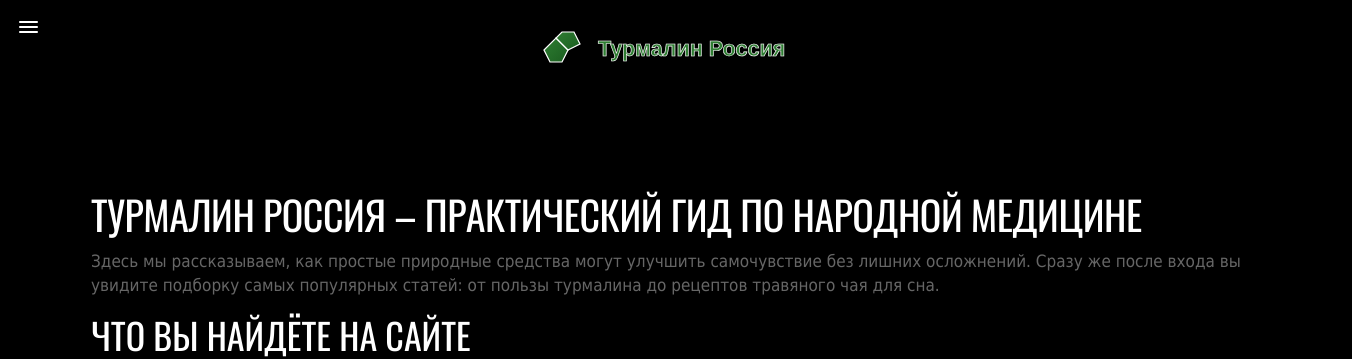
#include <cairo/cairo.h>
#include <math.h>
#include <stddef.h>

static cairo_t *cr;

static void rgb(unsigned color)
{
	cairo_set_source_rgb(cr, (color >> 16) / 255.0, (color >> 8 & 255) / 255.0, (color & 255) / 255.0);
}

static void tracked(double x, double y, const char *s, double letter, double word)
{
	cairo_move_to(cr, x, y);
	while (*s) {
		char ch[5] = {0};
		int n = 0;
		do ch[n++] = *s++; while ((*s & 0xC0) == 0x80);
		cairo_show_text(cr, ch);
		cairo_rel_move_to(cr, letter + word * (*ch == ' '), 0);
	}
}

static void rrect(double x, double y, double w, double h, double r)
{
	cairo_new_sub_path(cr);
	cairo_arc(cr, x + w - r, y + h - r, r, 0, M_PI / 2);
	cairo_arc(cr, x + r, y + h - r, r, M_PI / 2, M_PI);
	cairo_arc(cr, x + r, y + r, r, M_PI, 1.5 * M_PI);
	cairo_arc(cr, x + w - r, y + r, r, 1.5 * M_PI, 2 * M_PI);
	cairo_close_path(cr);
}

static void image(const char *path, double x, double y, double w, double h)
{
	cairo_surface_t *image = cairo_image_surface_create_from_png(path);
	cairo_save(cr);
	cairo_set_source_surface(cr, image, x, y);
	cairo_rectangle(cr, x, y, w, h);
	cairo_fill(cr);
	cairo_restore(cr);
	cairo_surface_destroy(image);
}

int main(void) {
	cairo_surface_t *surface = cairo_image_surface_create(CAIRO_FORMAT_RGB24, 1352, 359);
	cr = cairo_create(surface);
	cairo_font_options_t *options = cairo_font_options_create();
	cairo_font_options_set_hint_metrics(options, CAIRO_HINT_METRICS_OFF);
	cairo_font_options_set_hint_style(options, CAIRO_HINT_STYLE_NONE);
	cairo_set_font_options(cr, options);
	cairo_set_miter_limit(cr, 4);
	rgb(0x000000);
	cairo_paint(cr);
	rgb(0xffffff);
	rrect(19, 21, 19, 2, 1);
	cairo_fill(cr);
	rrect(19, 26, 19, 2, 1);
	cairo_fill(cr);
	rrect(19, 31, 19, 2, 1);
	cairo_fill(cr);
	image("img/1.png", 543, 31, 242, 32);
	cairo_select_font_face(cr, "Oswald", CAIRO_FONT_SLANT_NORMAL, CAIRO_FONT_WEIGHT_NORMAL);
	cairo_set_font_size(cr, 40);
	tracked(91, 232, "ТУРМАЛИН РОССИЯ – ПРАКТИЧЕСКИЙ ГИД ПО НАРОДНОЙ МЕДИЦИНЕ", -0.5, 0);
	cairo_select_font_face(cr, "DejaVu Sans", CAIRO_FONT_SLANT_NORMAL, CAIRO_FONT_WEIGHT_NORMAL);
	cairo_set_font_size(cr, 17);
	rgb(0x666666);
	cairo_move_to(cr, 91, 267);
	cairo_show_text(cr, "Здесь мы рассказываем, как простые природные средства могут улучшить самочувствие без лишних осложнений. Сразу же после входа вы");
	cairo_move_to(cr, 91, 291);
	cairo_show_text(cr, "увидите подборку самых популярных статей: от пользы турмалина до рецептов травяного чая для сна.");
	cairo_select_font_face(cr, "Oswald", CAIRO_FONT_SLANT_NORMAL, CAIRO_FONT_WEIGHT_NORMAL);
	cairo_set_font_size(cr, 36);
	rgb(0xffffff);
	cairo_move_to(cr, 91, 351);
	cairo_show_text(cr, "ЧТО ВЫ НАЙДЁТЕ НА САЙТЕ");
	cairo_surface_write_to_png(surface, "page.png");
	cairo_font_options_destroy(options);
	cairo_destroy(cr);
	cairo_surface_destroy(surface);
	return 0;
}
